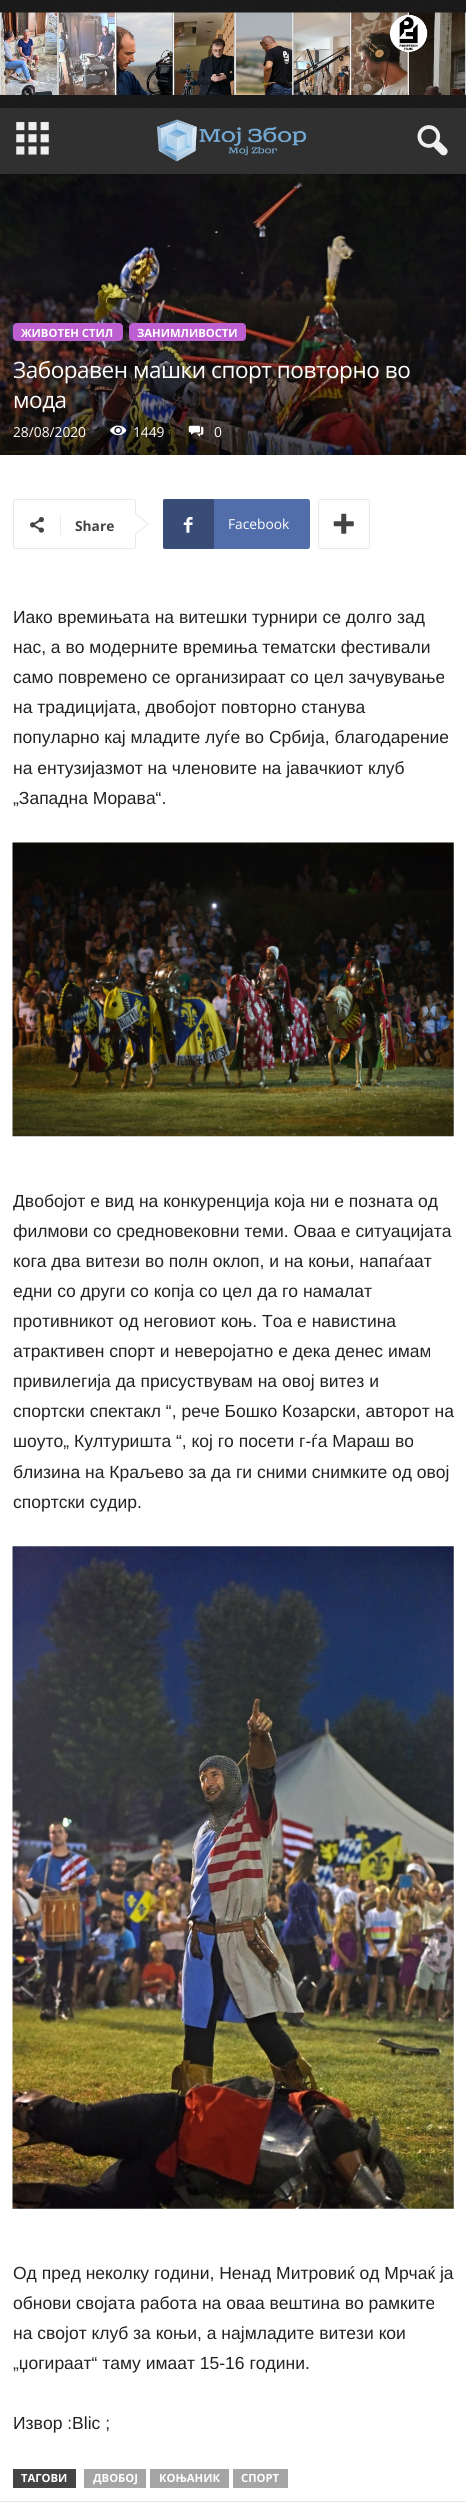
#include <cairo/cairo.h>
#include <math.h>
#include <stddef.h>

typedef struct { double x, y; const char *s; } line_t;
typedef struct { double x, y, w, h; unsigned color; } box_t;
static cairo_t *cr;

static void rgb(unsigned color)
{
	cairo_set_source_rgb(cr, (color >> 16) / 255.0, (color >> 8 & 255) / 255.0, (color & 255) / 255.0);
}

static void tracked(double x, double y, const char *s, double letter, double word)
{
	cairo_move_to(cr, x, y);
	while (*s) {
		char ch[5] = {0};
		int n = 0;
		do ch[n++] = *s++; while ((*s & 0xC0) == 0x80);
		cairo_show_text(cr, ch);
		cairo_rel_move_to(cr, letter + word * (*ch == ' '), 0);
	}
}

static void rrect(double x, double y, double w, double h, double r)
{
	cairo_new_sub_path(cr);
	cairo_arc(cr, x + w - r, y + h - r, r, 0, M_PI / 2);
	cairo_arc(cr, x + r, y + h - r, r, M_PI / 2, M_PI);
	cairo_arc(cr, x + r, y + r, r, M_PI, 1.5 * M_PI);
	cairo_arc(cr, x + w - r, y + r, r, 1.5 * M_PI, 2 * M_PI);
	cairo_close_path(cr);
}

static void image(const char *path, double x, double y, double w, double h)
{
	cairo_surface_t *image = cairo_image_surface_create_from_png(path);
	cairo_save(cr);
	cairo_set_source_surface(cr, image, x, y);
	cairo_rectangle(cr, x, y, w, h);
	cairo_fill(cr);
	cairo_restore(cr);
	cairo_surface_destroy(image);
}

int main(void) {
	cairo_surface_t *surface = cairo_image_surface_create(CAIRO_FORMAT_RGB24, 466, 2507);
	cr = cairo_create(surface);
	cairo_font_options_t *options = cairo_font_options_create();
	cairo_font_options_set_hint_metrics(options, CAIRO_HINT_METRICS_OFF);
	cairo_font_options_set_hint_style(options, CAIRO_HINT_STYLE_NONE);
	cairo_set_font_options(cr, options);
	cairo_set_miter_limit(cr, 4);
	rgb(0xffffff);
	cairo_paint(cr);
	image("img/1.png", 0, 0, 466, 108);
	image("img/2.png", 0, 12, 466, 83);
	rgb(0x303030);
	cairo_rectangle(cr, 0, 108, 466, 66);
	cairo_fill(cr);
	image("img/3.png", 16, 122, 33, 33);
	image("img/4.png", 157, 119, 150, 43);
	image("img/5.png", 417, 125, 31, 31);
	image("img/6.png", 0, 174, 466, 281);
	rgb(0xbd5ed1);
	rrect(13, 323, 110, 18, 4);
	cairo_fill(cr);
	rrect(129, 323, 117, 18, 4);
	cairo_fill(cr);
	image("img/7.png", 110, 425, 17, 11);
	image("img/8.png", 188, 425, 16, 12);
	rrect(13.5, 499.5, 122, 49, 2);
	rgb(0xe9e9e9);
	cairo_set_line_width(cr, 1);
	cairo_stroke(cr);
	cairo_new_path(cr);
	cairo_move_to(cr, 135, 535);
	cairo_line_to(cr, 135, 512.5);
	cairo_line_to(cr, 149, 524);
	cairo_close_path(cr);
	cairo_fill(cr);
	image("img/9.png", 30, 517, 14, 16);
	rgb(0xebebeb);
	cairo_rectangle(cr, 60, 515, 1, 20);
	cairo_fill(cr);
	rgb(0xffffff);
	cairo_new_path(cr);
	cairo_move_to(cr, 135, 534);
	cairo_line_to(cr, 135, 514);
	cairo_line_to(cr, 147.5, 524);
	cairo_close_path(cr);
	cairo_fill(cr);
	rgb(0x516eab);
	cairo_new_path(cr);
	cairo_move_to(cr, 206, 499);
	cairo_line_to(cr, 307.5, 499);
	cairo_curve_to(cr, 309, 499, 310, 500, 310, 501.5);
	cairo_line_to(cr, 310, 546.5);
	cairo_curve_to(cr, 310, 548, 309, 549, 307.5, 549);
	cairo_line_to(cr, 206, 549);
	cairo_close_path(cr);
	cairo_fill(cr);
	cairo_new_path(cr);
	cairo_move_to(cr, 165.5, 499);
	cairo_line_to(cr, 214, 499);
	cairo_line_to(cr, 214, 549);
	cairo_line_to(cr, 165.5, 549);
	cairo_curve_to(cr, 164, 549, 163, 548, 163, 546.5);
	cairo_line_to(cr, 163, 501.5);
	cairo_curve_to(cr, 163, 500, 164, 499, 165.5, 499);
	cairo_close_path(cr);
	cairo_fill(cr);
	cairo_set_source_rgba(cr, 0, 0, 0, 0.31);
	cairo_rectangle(cr, 163, 499, 51, 50);
	cairo_fill(cr);
	image("img/10.png", 183, 516, 10, 17);
	rrect(318.5, 499.5, 51, 49, 2);
	rgb(0xe9e9e9);
	cairo_stroke(cr);
	image("img/11.png", 333, 513, 21, 21);
	image("img/12.png", 12, 842, 442, 295);
	image("img/13.png", 12, 1546, 442, 663);
	{
		static const box_t items[] = {
			{13, 2469, 63, 19, 0x444444},
			{84, 2469, 62, 19, 0xa5a5a5},
			{150, 2469, 79, 19, 0xa5a5a5},
			{233, 2469, 55, 19, 0xa5a5a5},
			{0, 2501, 466, 1, 0xe6e6e6},
		};
		for (size_t i = 0; i < sizeof items / sizeof *items; i++) {
			rgb(items[i].color);
			cairo_rectangle(cr, items[i].x, items[i].y, items[i].w, items[i].h);
			cairo_fill(cr);
		}
	}
	cairo_select_font_face(cr, "Open Sans", CAIRO_FONT_SLANT_NORMAL, CAIRO_FONT_WEIGHT_BOLD);
	cairo_set_font_size(cr, 11.25);
	rgb(0xffffff);
	cairo_move_to(cr, 21, 337);
	cairo_show_text(cr, "ЖИВОТЕН СТИЛ");
	cairo_move_to(cr, 137, 337);
	cairo_show_text(cr, "ЗАНИМЛИВОСТИ");
	cairo_select_font_face(cr, "Open Sans", CAIRO_FONT_SLANT_NORMAL, CAIRO_FONT_WEIGHT_NORMAL);
	cairo_set_font_size(cr, 22.5);
	tracked(13, 378, "Заборавен машки спорт повторно во", -0.45, 0);
	tracked(13, 408, "мода", -0.45, 0);
	cairo_set_font_size(cr, 13.75);
	{
		static const line_t items[] = {
			{13, 437, "28/08/2020"},
			{133, 437, "1449"},
			{214, 437, "0"},
		};
		for (size_t i = 0; i < sizeof items / sizeof *items; i++) {
			cairo_move_to(cr, items[i].x, items[i].y);
			cairo_show_text(cr, items[i].s);
		}
	}
	cairo_select_font_face(cr, "Open Sans", CAIRO_FONT_SLANT_NORMAL, CAIRO_FONT_WEIGHT_BOLD);
	rgb(0x444444);
	cairo_move_to(cr, 75, 531);
	cairo_show_text(cr, "Share");
	cairo_select_font_face(cr, "Open Sans", CAIRO_FONT_SLANT_NORMAL, CAIRO_FONT_WEIGHT_NORMAL);
	rgb(0xffffff);
	cairo_move_to(cr, 228, 529);
	cairo_show_text(cr, "Facebook");
	cairo_select_font_face(cr, "Liberation Sans", CAIRO_FONT_SLANT_NORMAL, CAIRO_FONT_WEIGHT_NORMAL);
	cairo_set_font_size(cr, 17.5);
	rgb(0x222222);
	{
		static const line_t items[] = {
			{13, 623, "Иако времињата на витешки турнири се долго зад"},
			{13, 653, "нас, а во модерните времиња тематски фестивали"},
			{13, 683, "само повремено се организираат со цел зачувување"},
			{13, 713, "на традицијата, двобојот повторно станува"},
			{13, 743, "популарно кај младите луѓе во Србија, благодарение"},
			{13, 774, "на ентузијазмот на членовите на јавачкиот клуб"},
			{13, 804, "„Западна Морава“."},
			{13, 1207, "Двобојот е вид на конкуренција која ни е позната од"},
			{13, 1237, "филмови со средновековни теми. Оваа е ситуацијата"},
			{13, 1267, "кога два витези во полн оклоп, и на коњи, напаѓаат"},
			{13, 1297, "едни со други со копја со цел да го намалат"},
			{13, 1327, "противникот од неговиот коњ. Тоа е навистина"},
			{13, 1357, "атрактивен спорт и неверојатно е дека денес имам"},
			{13, 1387, "привилегија да присуствувам на овој витез и"},
			{13, 1417, "спортски спектакл “, рече Бошко Козарски, авторот на"},
			{13, 1447, "шоуто„ Културишта “, кој го посети г-ѓа Мараш во"},
			{13, 1478, "близина на Краљево за да ги сними снимките од овој"},
			{13, 1508, "спортски судир."},
			{13, 2279, "Од пред неколку години, Ненад Митровиќ од Мрчаќ ја"},
			{13, 2309, "обнови својата работа на оваа вештина во рамките"},
			{13, 2339, "на својот клуб за коњи, а најмладите витези кои"},
			{13, 2369, "„џогираат“ таму имаат 15-16 години."},
			{13, 2429, "Извор :Blic ;"},
		};
		for (size_t i = 0; i < sizeof items / sizeof *items; i++) {
			cairo_move_to(cr, items[i].x, items[i].y);
			cairo_show_text(cr, items[i].s);
		}
	}
	cairo_select_font_face(cr, "Open Sans", CAIRO_FONT_SLANT_NORMAL, CAIRO_FONT_WEIGHT_BOLD);
	cairo_set_font_size(cr, 11.25);
	rgb(0xffffff);
	{
		static const line_t items[] = {
			{21, 2482, "ТАГОВИ"},
			{93, 2482, "ДВОБОЈ"},
			{159, 2482, "КОЊАНИК"},
			{241, 2482, "СПОРТ"},
		};
		for (size_t i = 0; i < sizeof items / sizeof *items; i++) {
			cairo_move_to(cr, items[i].x, items[i].y);
			cairo_show_text(cr, items[i].s);
		}
	}
	cairo_surface_write_to_png(surface, "page.png");
	cairo_font_options_destroy(options);
	cairo_destroy(cr);
	cairo_surface_destroy(surface);
	return 0;
}
